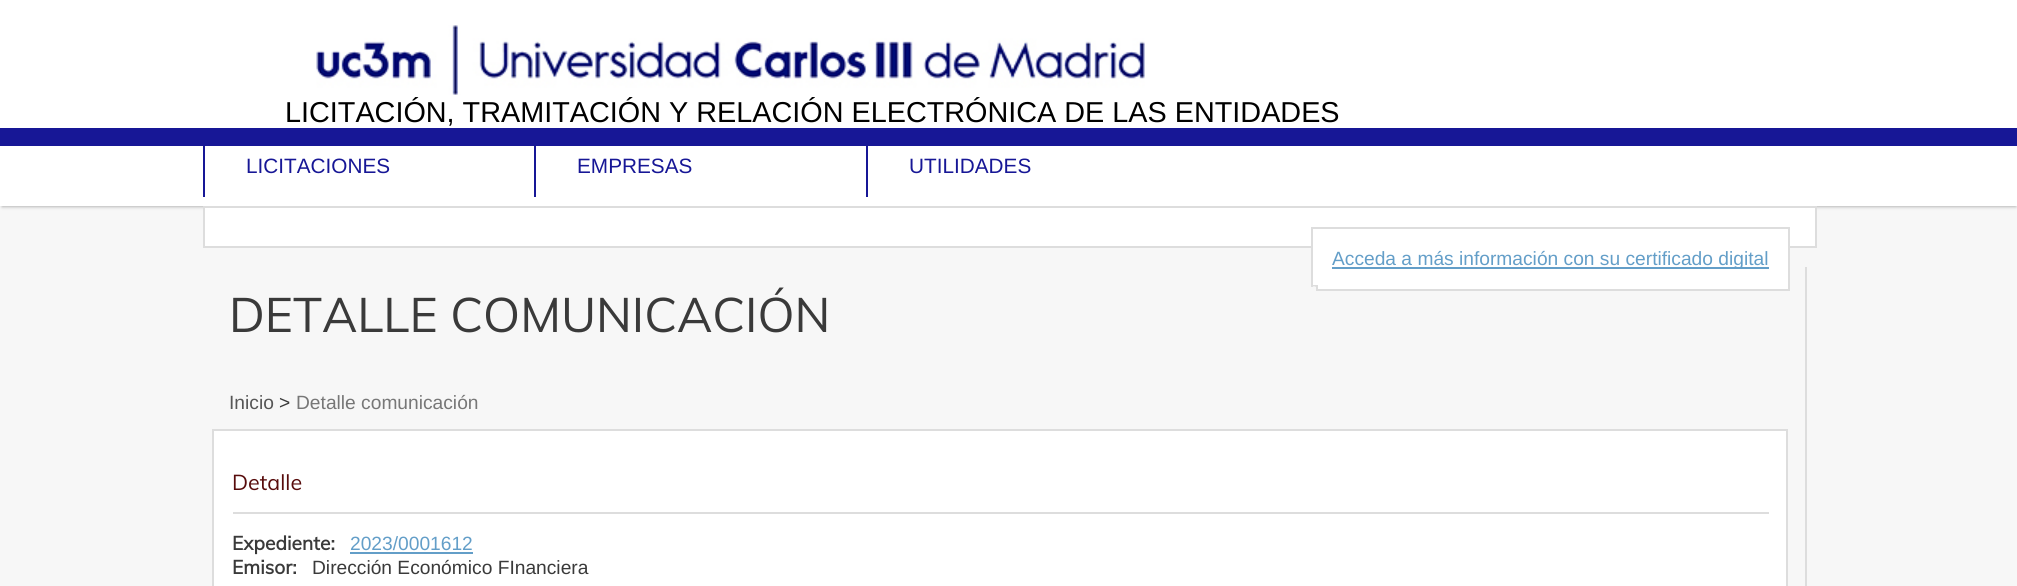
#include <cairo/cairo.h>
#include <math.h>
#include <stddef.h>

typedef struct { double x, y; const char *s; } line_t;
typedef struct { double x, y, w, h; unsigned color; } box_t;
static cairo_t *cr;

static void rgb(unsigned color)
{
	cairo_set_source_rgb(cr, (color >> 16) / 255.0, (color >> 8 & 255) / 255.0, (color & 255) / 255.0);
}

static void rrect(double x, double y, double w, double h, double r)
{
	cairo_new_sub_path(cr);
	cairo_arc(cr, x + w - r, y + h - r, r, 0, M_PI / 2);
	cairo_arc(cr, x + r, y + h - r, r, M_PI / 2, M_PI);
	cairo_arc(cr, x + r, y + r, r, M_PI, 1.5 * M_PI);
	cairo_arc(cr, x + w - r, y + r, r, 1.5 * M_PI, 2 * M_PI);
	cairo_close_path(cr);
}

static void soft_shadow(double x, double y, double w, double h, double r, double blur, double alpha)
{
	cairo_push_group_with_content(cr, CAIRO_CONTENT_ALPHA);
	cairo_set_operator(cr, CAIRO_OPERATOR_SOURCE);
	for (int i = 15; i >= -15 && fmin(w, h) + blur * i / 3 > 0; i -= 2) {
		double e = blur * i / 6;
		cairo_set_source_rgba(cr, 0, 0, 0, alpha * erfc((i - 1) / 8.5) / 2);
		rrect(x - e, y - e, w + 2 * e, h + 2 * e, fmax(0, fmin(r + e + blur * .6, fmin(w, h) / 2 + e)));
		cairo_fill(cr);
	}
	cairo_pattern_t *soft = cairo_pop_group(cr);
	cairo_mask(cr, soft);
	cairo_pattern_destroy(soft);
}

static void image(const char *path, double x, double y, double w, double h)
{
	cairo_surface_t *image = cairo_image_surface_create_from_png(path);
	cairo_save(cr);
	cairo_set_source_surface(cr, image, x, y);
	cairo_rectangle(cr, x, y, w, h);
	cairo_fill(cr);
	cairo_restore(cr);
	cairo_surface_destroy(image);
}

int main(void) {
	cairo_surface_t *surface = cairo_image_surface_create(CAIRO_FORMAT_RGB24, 2017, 586);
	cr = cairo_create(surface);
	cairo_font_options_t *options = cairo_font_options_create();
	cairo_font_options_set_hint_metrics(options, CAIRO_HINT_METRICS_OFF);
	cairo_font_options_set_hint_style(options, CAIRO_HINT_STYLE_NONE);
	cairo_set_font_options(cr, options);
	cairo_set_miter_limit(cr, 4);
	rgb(0xf7f7f7);
	cairo_paint(cr);
	rgb(0xffffff);
	cairo_rectangle(cr, 0, 0, 2017, 128);
	cairo_fill(cr);
	rgb(0xb7b7b7);
	soft_shadow(2, 150, 2014, 57, 0, 1.5, 1);
	rgb(0x171796);
	cairo_rectangle(cr, 0, 128, 2017, 18);
	cairo_fill(cr);
	image("img/1.png", 316, 25, 829, 70);
	{
		static const box_t items[] = {
			{0, 146, 2017, 60, 0xffffff},
			{203, 146, 2, 51, 0x171796},
			{534, 146, 2, 51, 0x171796},
			{866, 146, 2, 51, 0x171796},
		};
		for (size_t i = 0; i < sizeof items / sizeof *items; i++) {
			rgb(items[i].color);
			cairo_rectangle(cr, items[i].x, items[i].y, items[i].w, items[i].h);
			cairo_fill(cr);
		}
	}
	rgb(0xffffff);
	cairo_rectangle(cr, 204, 207, 1612, 40);
	cairo_fill_preserve(cr);
	rgb(0xdddddd);
	cairo_stroke(cr);
	rgb(0xffffff);
	cairo_rectangle(cr, 1313, 246, 475, 43);
	cairo_fill(cr);
	cairo_rectangle(cr, 1312, 228, 477, 62);
	rgb(0xdddddd);
	cairo_stroke(cr);
	rgb(0x639ec8);
	cairo_rectangle(cr, 1332, 267, 437, 2);
	cairo_fill(cr);
	rgb(0xdddddd);
	cairo_new_path(cr);
	cairo_move_to(cr, 1313, 285);
	cairo_line_to(cr, 1313, 286.5);
	cairo_line_to(cr, 1315.5, 286.5);
	cairo_line_to(cr, 1315.5, 290);
	cairo_line_to(cr, 1318, 290);
	cairo_line_to(cr, 1318, 285);
	cairo_close_path(cr);
	cairo_fill(cr);
	rgb(0xf7f7f7);
	cairo_rectangle(cr, 1311, 287, 5, 4);
	cairo_fill(cr);
	rgb(0xdddddd);
	cairo_rectangle(cr, 1805, 267, 2, 319);
	cairo_fill(cr);
	rgb(0xffffff);
	cairo_rectangle(cr, 213, 430, 1574, 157);
	cairo_fill_preserve(cr);
	rgb(0xdddddd);
	cairo_stroke(cr);
	cairo_rectangle(cr, 233, 512, 1536, 2);
	cairo_fill(cr);
	rgb(0x639ec8);
	cairo_rectangle(cr, 350, 552, 123, 2);
	cairo_fill(cr);
	cairo_select_font_face(cr, "Liberation Sans", CAIRO_FONT_SLANT_NORMAL, CAIRO_FONT_WEIGHT_NORMAL);
	cairo_set_font_size(cr, 28.8);
	rgb(0x000000);
	cairo_move_to(cr, 285, 122);
	cairo_show_text(cr, "LICITACIÓN, TRAMITACIÓN Y RELACIÓN ELECTRÓNICA DE LAS ENTIDADES");
	cairo_set_font_size(cr, 20.75);
	rgb(0x171796);
	{
		static const line_t items[] = {
			{246, 173, "LICITACIONES"},
			{577, 173, "EMPRESAS"},
			{909, 173, "UTILIDADES"},
		};
		for (size_t i = 0; i < sizeof items / sizeof *items; i++) {
			cairo_move_to(cr, items[i].x, items[i].y);
			cairo_show_text(cr, items[i].s);
		}
	}
	cairo_set_font_size(cr, 19.2);
	rgb(0x639ec8);
	cairo_move_to(cr, 1332, 265);
	cairo_show_text(cr, "Acceda a más información con su certificado digital");
	cairo_select_font_face(cr, "Muli", CAIRO_FONT_SLANT_NORMAL, CAIRO_FONT_WEIGHT_NORMAL);
	cairo_set_font_size(cr, 48);
	rgb(0x3a3a3a);
	cairo_move_to(cr, 229, 332);
	cairo_show_text(cr, "DETALLE COMUNICACIÓN");
	cairo_select_font_face(cr, "Liberation Sans", CAIRO_FONT_SLANT_NORMAL, CAIRO_FONT_WEIGHT_NORMAL);
	cairo_set_font_size(cr, 19.2);
	rgb(0x565656);
	cairo_move_to(cr, 229, 409);
	cairo_show_text(cr, "Inicio");
	rgb(0x3a3a3a);
	cairo_move_to(cr, 279, 409);
	cairo_show_text(cr, ">");
	rgb(0x777777);
	cairo_move_to(cr, 296, 409);
	cairo_show_text(cr, "Detalle comunicación");
	cairo_select_font_face(cr, "Muli", CAIRO_FONT_SLANT_NORMAL, CAIRO_FONT_WEIGHT_NORMAL);
	cairo_set_font_size(cr, 21.5);
	rgb(0x580c0c);
	cairo_move_to(cr, 232, 490);
	cairo_show_text(cr, "Detalle");
	cairo_select_font_face(cr, "Muli", CAIRO_FONT_SLANT_NORMAL, CAIRO_FONT_WEIGHT_BOLD);
	cairo_set_font_size(cr, 19.2);
	rgb(0x3a3a3a);
	cairo_move_to(cr, 232, 550);
	cairo_show_text(cr, "Expediente:");
	cairo_select_font_face(cr, "Liberation Sans", CAIRO_FONT_SLANT_NORMAL, CAIRO_FONT_WEIGHT_NORMAL);
	rgb(0x639ec8);
	cairo_move_to(cr, 350, 550);
	cairo_show_text(cr, "2023/0001612");
	cairo_select_font_face(cr, "Muli", CAIRO_FONT_SLANT_NORMAL, CAIRO_FONT_WEIGHT_BOLD);
	rgb(0x3a3a3a);
	cairo_move_to(cr, 232, 574);
	cairo_show_text(cr, "Emisor:");
	cairo_select_font_face(cr, "Liberation Sans", CAIRO_FONT_SLANT_NORMAL, CAIRO_FONT_WEIGHT_NORMAL);
	cairo_move_to(cr, 312, 574);
	cairo_show_text(cr, "Dirección Económico FInanciera");
	cairo_surface_write_to_png(surface, "page.png");
	cairo_font_options_destroy(options);
	cairo_destroy(cr);
	cairo_surface_destroy(surface);
	return 0;
}
